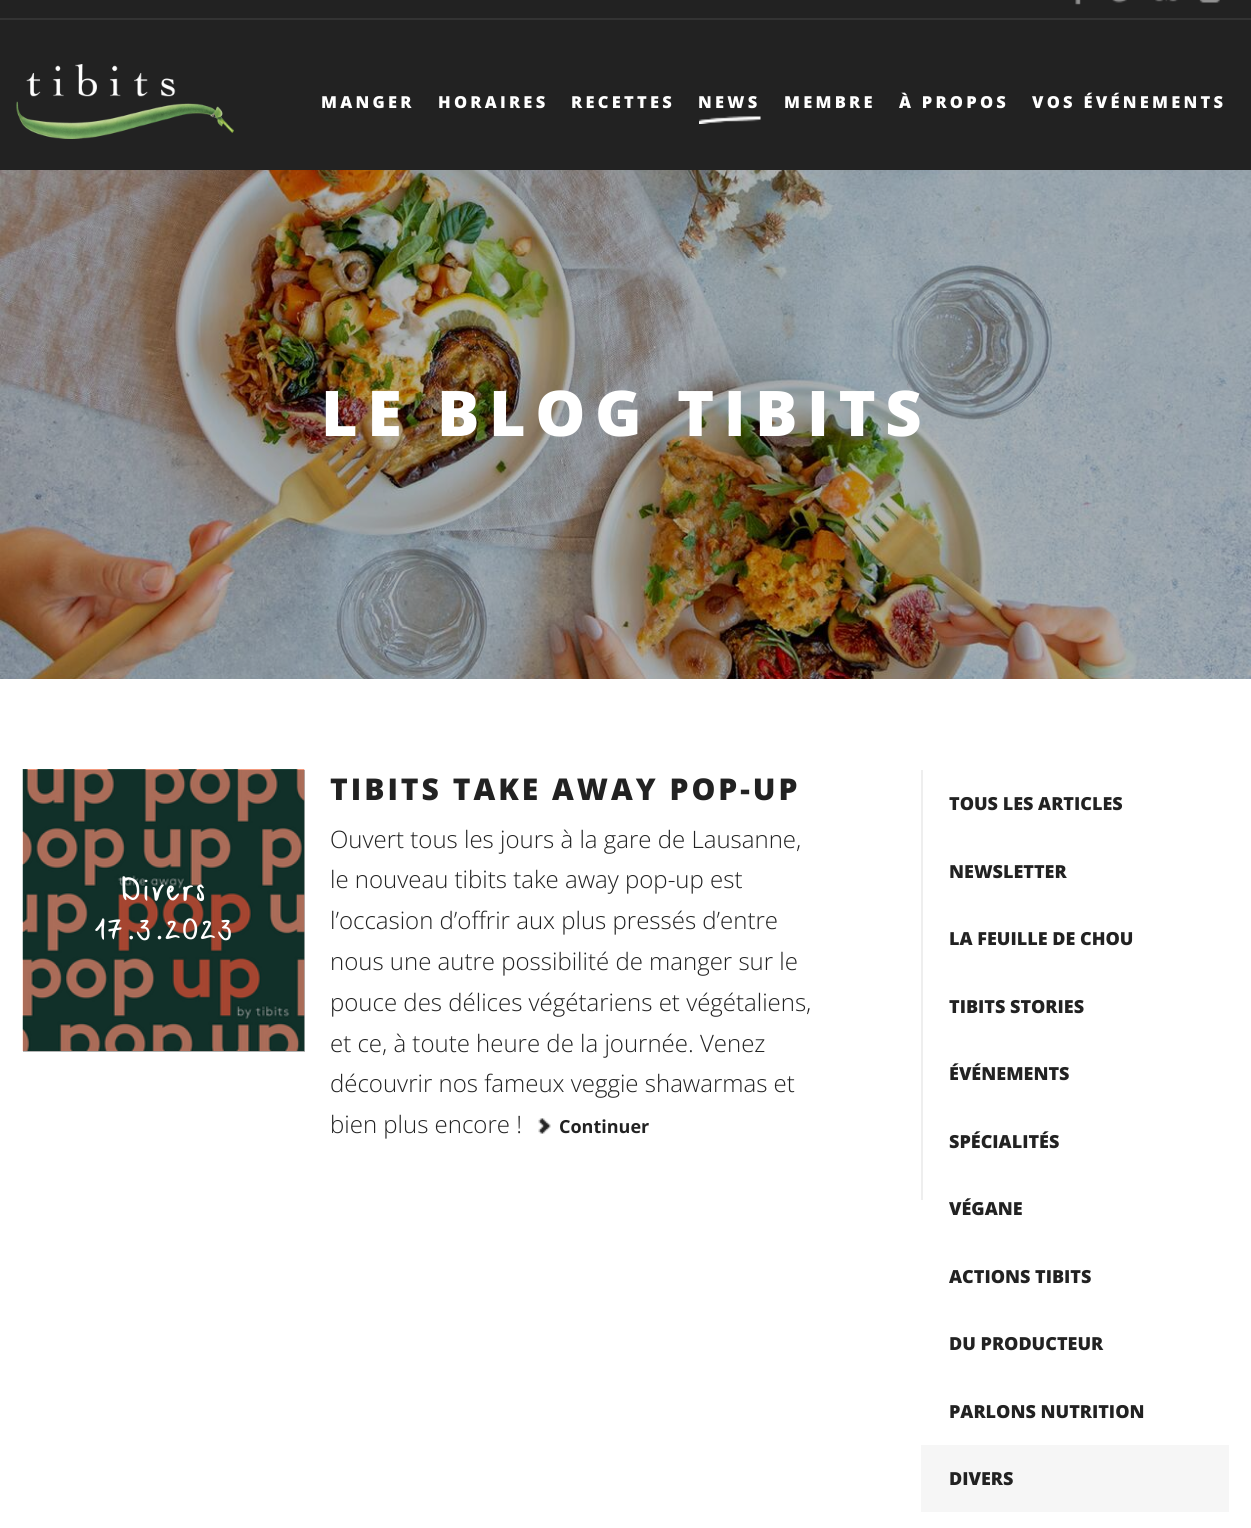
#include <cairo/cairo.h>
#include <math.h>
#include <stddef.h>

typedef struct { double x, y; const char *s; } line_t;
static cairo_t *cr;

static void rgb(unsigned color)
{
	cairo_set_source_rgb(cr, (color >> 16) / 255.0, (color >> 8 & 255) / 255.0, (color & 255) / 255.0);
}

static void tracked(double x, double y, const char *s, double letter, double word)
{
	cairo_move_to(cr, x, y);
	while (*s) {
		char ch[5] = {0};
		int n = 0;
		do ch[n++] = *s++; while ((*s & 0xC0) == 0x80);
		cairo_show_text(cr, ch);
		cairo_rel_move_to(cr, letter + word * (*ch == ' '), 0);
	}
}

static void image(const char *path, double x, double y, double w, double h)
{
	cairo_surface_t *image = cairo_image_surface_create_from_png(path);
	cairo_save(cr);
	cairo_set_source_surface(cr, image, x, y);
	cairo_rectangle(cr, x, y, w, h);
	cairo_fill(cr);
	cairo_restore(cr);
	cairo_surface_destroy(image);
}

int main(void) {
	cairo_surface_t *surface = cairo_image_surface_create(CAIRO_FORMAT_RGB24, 1251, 1528);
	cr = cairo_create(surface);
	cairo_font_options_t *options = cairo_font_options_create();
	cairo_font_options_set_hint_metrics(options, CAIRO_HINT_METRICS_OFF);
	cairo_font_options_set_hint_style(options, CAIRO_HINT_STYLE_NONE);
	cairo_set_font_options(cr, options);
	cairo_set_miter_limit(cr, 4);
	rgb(0xffffff);
	cairo_paint(cr);
	rgb(0x222222);
	cairo_rectangle(cr, 0, 0, 1251, 18);
	cairo_fill(cr);
	rgb(0x333333);
	cairo_rectangle(cr, 0, 18, 1251, 2);
	cairo_fill(cr);
	image("img/1.png", 1075, 0, 6, 5);
	image("img/2.png", 1112, 0, 15, 3);
	image("img/3.png", 1155, 0, 23, 2);
	image("img/4.png", 1199, 0, 21, 3);
	rgb(0x222222);
	cairo_rectangle(cr, 0, 20, 1251, 150);
	cairo_fill(cr);
	image("img/5.png", 16, 64, 218, 75);
	image("img/6.png", 699, 116, 62, 8);
	image("img/7.png", 0, 170, 1251, 509);
	rgb(0xb3b3b3);
	cairo_rectangle(cr, 23, 770, 282, 282);
	cairo_fill(cr);
	rgb(0xeeeeee);
	cairo_rectangle(cr, 921, 770, 2, 430);
	cairo_fill(cr);
	image("img/8.png", 22, 769, 283, 282);
	image("img/9.png", 538, 1118, 13, 16);
	rgb(0xf6f6f6);
	cairo_rectangle(cr, 921, 1445, 308, 67);
	cairo_fill(cr);
	cairo_select_font_face(cr, "Open Sans ExtraBold", CAIRO_FONT_SLANT_NORMAL, CAIRO_FONT_WEIGHT_NORMAL);
	cairo_set_font_size(cr, 16.5);
	rgb(0xffffff);
	{
		static const line_t items[] = {
			{321, 108, "MANGER"},
			{438, 108, "HORAIRES"},
			{571, 108, "RECETTES"},
			{698, 108, "NEWS"},
			{784, 108, "MEMBRE"},
			{899, 108, "À PROPOS"},
			{1032, 108, "VOS ÉVÉNEMENTS"},
		};
		for (size_t i = 0; i < sizeof items / sizeof *items; i++) {
			tracked(items[i].x, items[i].y, items[i].s, 3.25, 0);
		}
	}
	cairo_set_font_size(cr, 63);
	tracked(321, 436, "LE BLOG TIBITS", 9.5, 0);
	cairo_select_font_face(cr, "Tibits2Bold", CAIRO_FONT_SLANT_NORMAL, CAIRO_FONT_WEIGHT_BOLD);
	cairo_set_font_size(cr, 34.5);
	tracked(122, 900, "Divers", 3.5, 0);
	cairo_set_font_size(cr, 30);
	tracked(95, 939, "17.3.2023", 3, 0);
	cairo_select_font_face(cr, "Open Sans ExtraBold", CAIRO_FONT_SLANT_NORMAL, CAIRO_FONT_WEIGHT_NORMAL);
	rgb(0x222222);
	tracked(330, 800, "TIBITS TAKE AWAY POP-UP", 3, 0);
	cairo_select_font_face(cr, "Open Sans Light", CAIRO_FONT_SLANT_NORMAL, CAIRO_FONT_WEIGHT_NORMAL);
	cairo_set_font_size(cr, 24);
	{
		static const line_t items[] = {
			{330, 848, "Ouvert tous les jours à la gare de Lausanne,"},
			{330, 888, "le nouveau tibits take away pop-up est"},
			{330, 929, "l’occasion d’offrir aux plus pressés d’entre"},
			{330, 970, "nous une autre possibilité de manger sur le"},
			{330, 1011, "pouce des délices végétariens et végétaliens,"},
			{330, 1052, "et ce, à toute heure de la journée. Venez"},
			{330, 1092, "découvrir nos fameux veggie shawarmas et"},
			{330, 1133, "bien plus encore !"},
		};
		for (size_t i = 0; i < sizeof items / sizeof *items; i++) {
			cairo_move_to(cr, items[i].x, items[i].y);
			cairo_show_text(cr, items[i].s);
		}
	}
	cairo_select_font_face(cr, "Open Sans", CAIRO_FONT_SLANT_NORMAL, CAIRO_FONT_WEIGHT_BOLD);
	cairo_set_font_size(cr, 18);
	cairo_move_to(cr, 559, 1133);
	cairo_show_text(cr, "Continuer");
	cairo_select_font_face(cr, "Open Sans ExtraBold", CAIRO_FONT_SLANT_NORMAL, CAIRO_FONT_WEIGHT_NORMAL);
	{
		static const line_t items[] = {
			{949, 810, "TOUS LES ARTICLES"},
			{949, 878, "NEWSLETTER"},
			{949, 945, "LA FEUILLE DE CHOU"},
			{949, 1013, "TIBITS STORIES"},
			{949, 1080, "ÉVÉNEMENTS"},
			{949, 1148, "SPÉCIALITÉS"},
			{949, 1215, "VÉGANE"},
			{949, 1283, "ACTIONS TIBITS"},
			{949, 1350, "DU PRODUCTEUR"},
			{949, 1418, "PARLONS NUTRITION"},
			{949, 1485, "DIVERS"},
		};
		for (size_t i = 0; i < sizeof items / sizeof *items; i++) {
			cairo_move_to(cr, items[i].x, items[i].y);
			cairo_show_text(cr, items[i].s);
		}
	}
	cairo_surface_write_to_png(surface, "page.png");
	cairo_font_options_destroy(options);
	cairo_destroy(cr);
	cairo_surface_destroy(surface);
	return 0;
}
